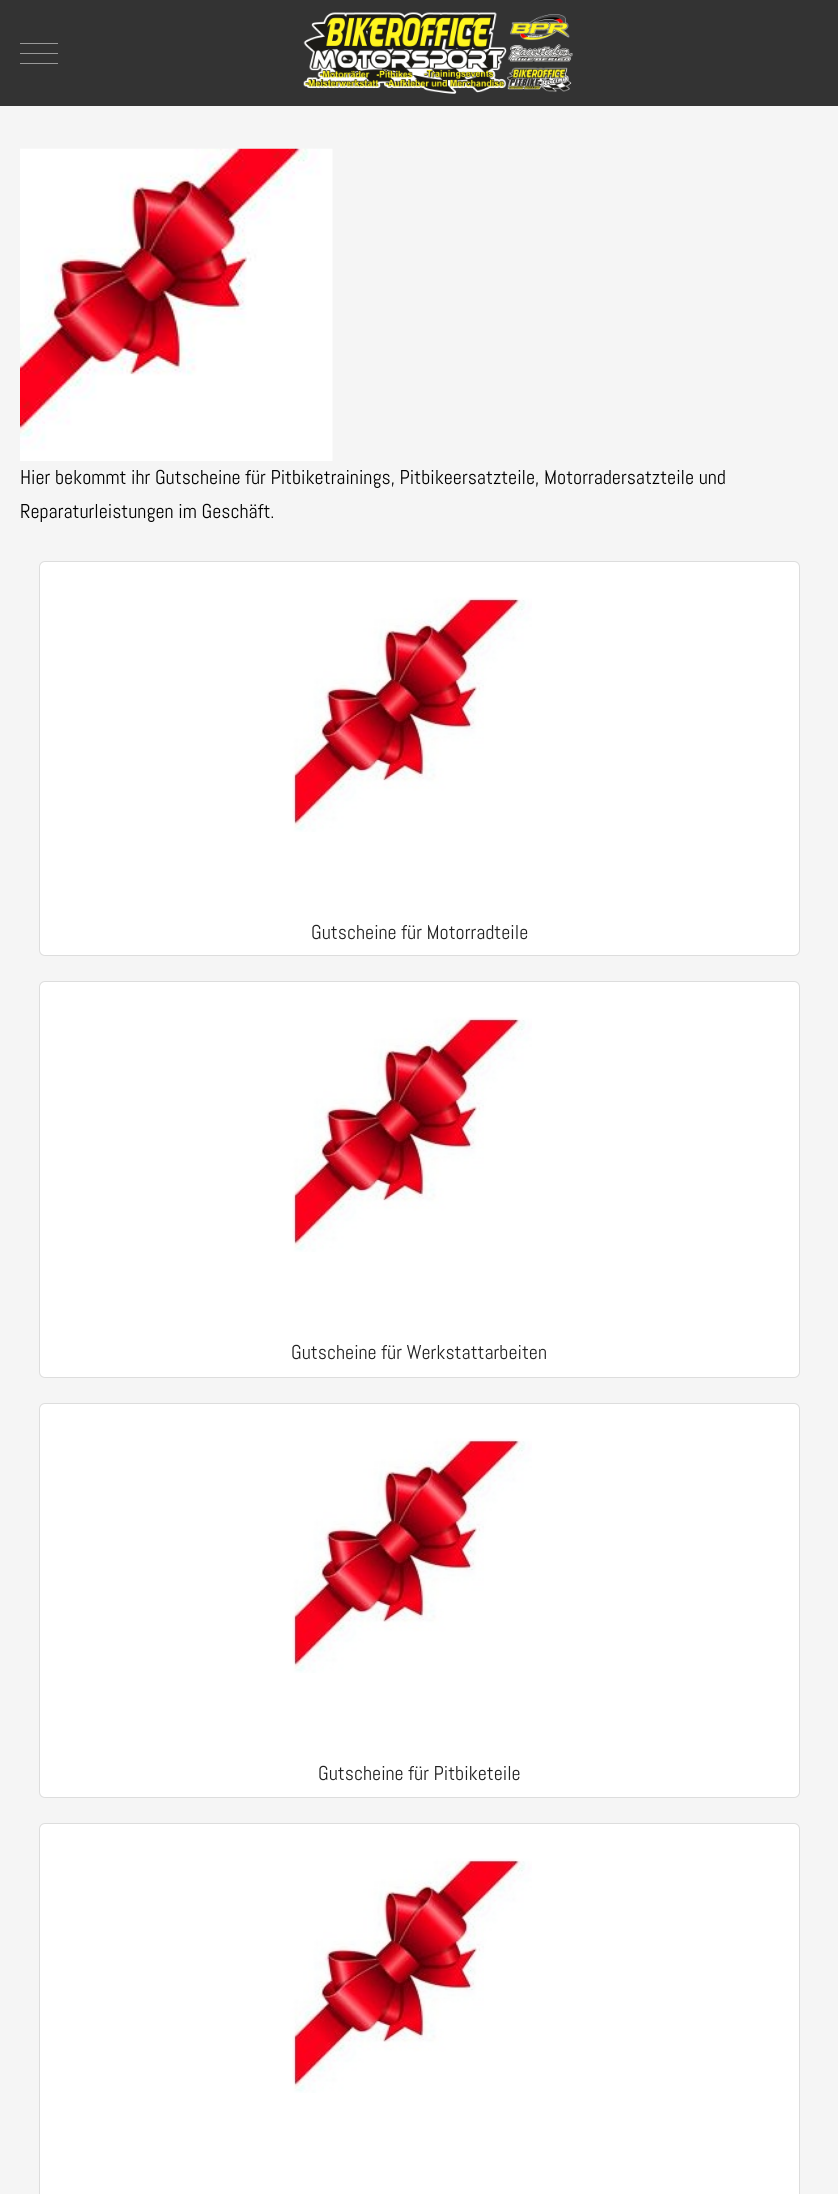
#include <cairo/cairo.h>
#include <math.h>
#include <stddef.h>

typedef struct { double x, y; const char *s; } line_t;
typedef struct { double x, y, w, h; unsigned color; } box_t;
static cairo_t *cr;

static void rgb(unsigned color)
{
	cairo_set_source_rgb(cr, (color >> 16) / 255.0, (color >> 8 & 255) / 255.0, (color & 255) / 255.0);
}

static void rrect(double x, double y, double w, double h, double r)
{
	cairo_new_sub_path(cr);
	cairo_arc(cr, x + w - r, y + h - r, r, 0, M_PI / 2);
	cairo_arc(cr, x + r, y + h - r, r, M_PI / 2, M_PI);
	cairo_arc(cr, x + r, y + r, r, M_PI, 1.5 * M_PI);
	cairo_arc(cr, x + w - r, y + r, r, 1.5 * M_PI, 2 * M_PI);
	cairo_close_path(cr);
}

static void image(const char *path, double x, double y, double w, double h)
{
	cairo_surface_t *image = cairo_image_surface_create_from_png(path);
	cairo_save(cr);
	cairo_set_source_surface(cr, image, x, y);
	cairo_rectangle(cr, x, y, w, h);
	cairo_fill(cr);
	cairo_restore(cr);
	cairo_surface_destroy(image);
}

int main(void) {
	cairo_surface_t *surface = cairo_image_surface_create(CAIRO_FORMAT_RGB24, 838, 2194);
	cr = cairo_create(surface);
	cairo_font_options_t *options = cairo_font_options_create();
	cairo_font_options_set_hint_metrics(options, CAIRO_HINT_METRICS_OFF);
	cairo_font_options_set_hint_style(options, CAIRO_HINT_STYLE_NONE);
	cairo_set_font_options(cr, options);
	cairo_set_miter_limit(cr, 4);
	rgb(0xf5f5f5);
	cairo_paint(cr);
	{
		static const box_t items[] = {
			{0, 0, 838, 106, 0x333333},
			{20, 53, 38, 1, 0x999999},
			{20, 43, 38, 1, 0x999999},
			{20, 63, 38, 1, 0x999999},
		};
		for (size_t i = 0; i < sizeof items / sizeof *items; i++) {
			rgb(items[i].color);
			cairo_rectangle(cr, items[i].x, items[i].y, items[i].w, items[i].h);
			cairo_fill(cr);
		}
	}
	image("img/1.png", 303, 12, 270, 82);
	image("img/2.png", 20, 148, 313, 313);
	rgb(0xffffff);
	rrect(39.5, 561.5, 760, 394, 5.5);
	cairo_fill_preserve(cr);
	rgb(0xdddddd);
	cairo_set_line_width(cr, 1);
	cairo_stroke(cr);
	image("img/3.png", 290, 597, 242, 235);
	rgb(0xffffff);
	rrect(39.5, 981.5, 760, 396, 5.5);
	cairo_fill_preserve(cr);
	rgb(0xdddddd);
	cairo_stroke(cr);
	image("img/4.png", 290, 1017, 242, 235);
	rgb(0xffffff);
	rrect(39.5, 1403.5, 760, 394, 5.5);
	cairo_fill_preserve(cr);
	rgb(0xdddddd);
	cairo_stroke(cr);
	image("img/5.png", 290, 1438, 242, 235);
	rgb(0xffffff);
	rrect(39.5, 1823.5, 760, 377, 5.5);
	cairo_fill_preserve(cr);
	rgb(0xdddddd);
	cairo_stroke(cr);
	image("img/6.png", 290, 1858, 242, 235);
	cairo_select_font_face(cr, "Abel", CAIRO_FONT_SLANT_NORMAL, CAIRO_FONT_WEIGHT_NORMAL);
	cairo_set_font_size(cr, 20);
	rgb(0x000000);
	cairo_move_to(cr, 20, 484);
	cairo_show_text(cr, "Hier bekommt ihr Gutscheine für Pitbiketrainings, Pitbikeersatzteile, Motorradersatzteile und");
	cairo_move_to(cr, 20, 518);
	cairo_show_text(cr, "Reparaturleistungen im Geschäft.");
	rgb(0x222222);
	{
		static const line_t items[] = {
			{311, 939, "Gutscheine für Motorradteile"},
			{291, 1359, "Gutscheine für Werkstattarbeiten"},
			{318, 1780, "Gutscheine für Pitbiketeile"},
		};
		for (size_t i = 0; i < sizeof items / sizeof *items; i++) {
			cairo_move_to(cr, items[i].x, items[i].y);
			cairo_show_text(cr, items[i].s);
		}
	}
	cairo_surface_write_to_png(surface, "page.png");
	cairo_font_options_destroy(options);
	cairo_destroy(cr);
	cairo_surface_destroy(surface);
	return 0;
}
